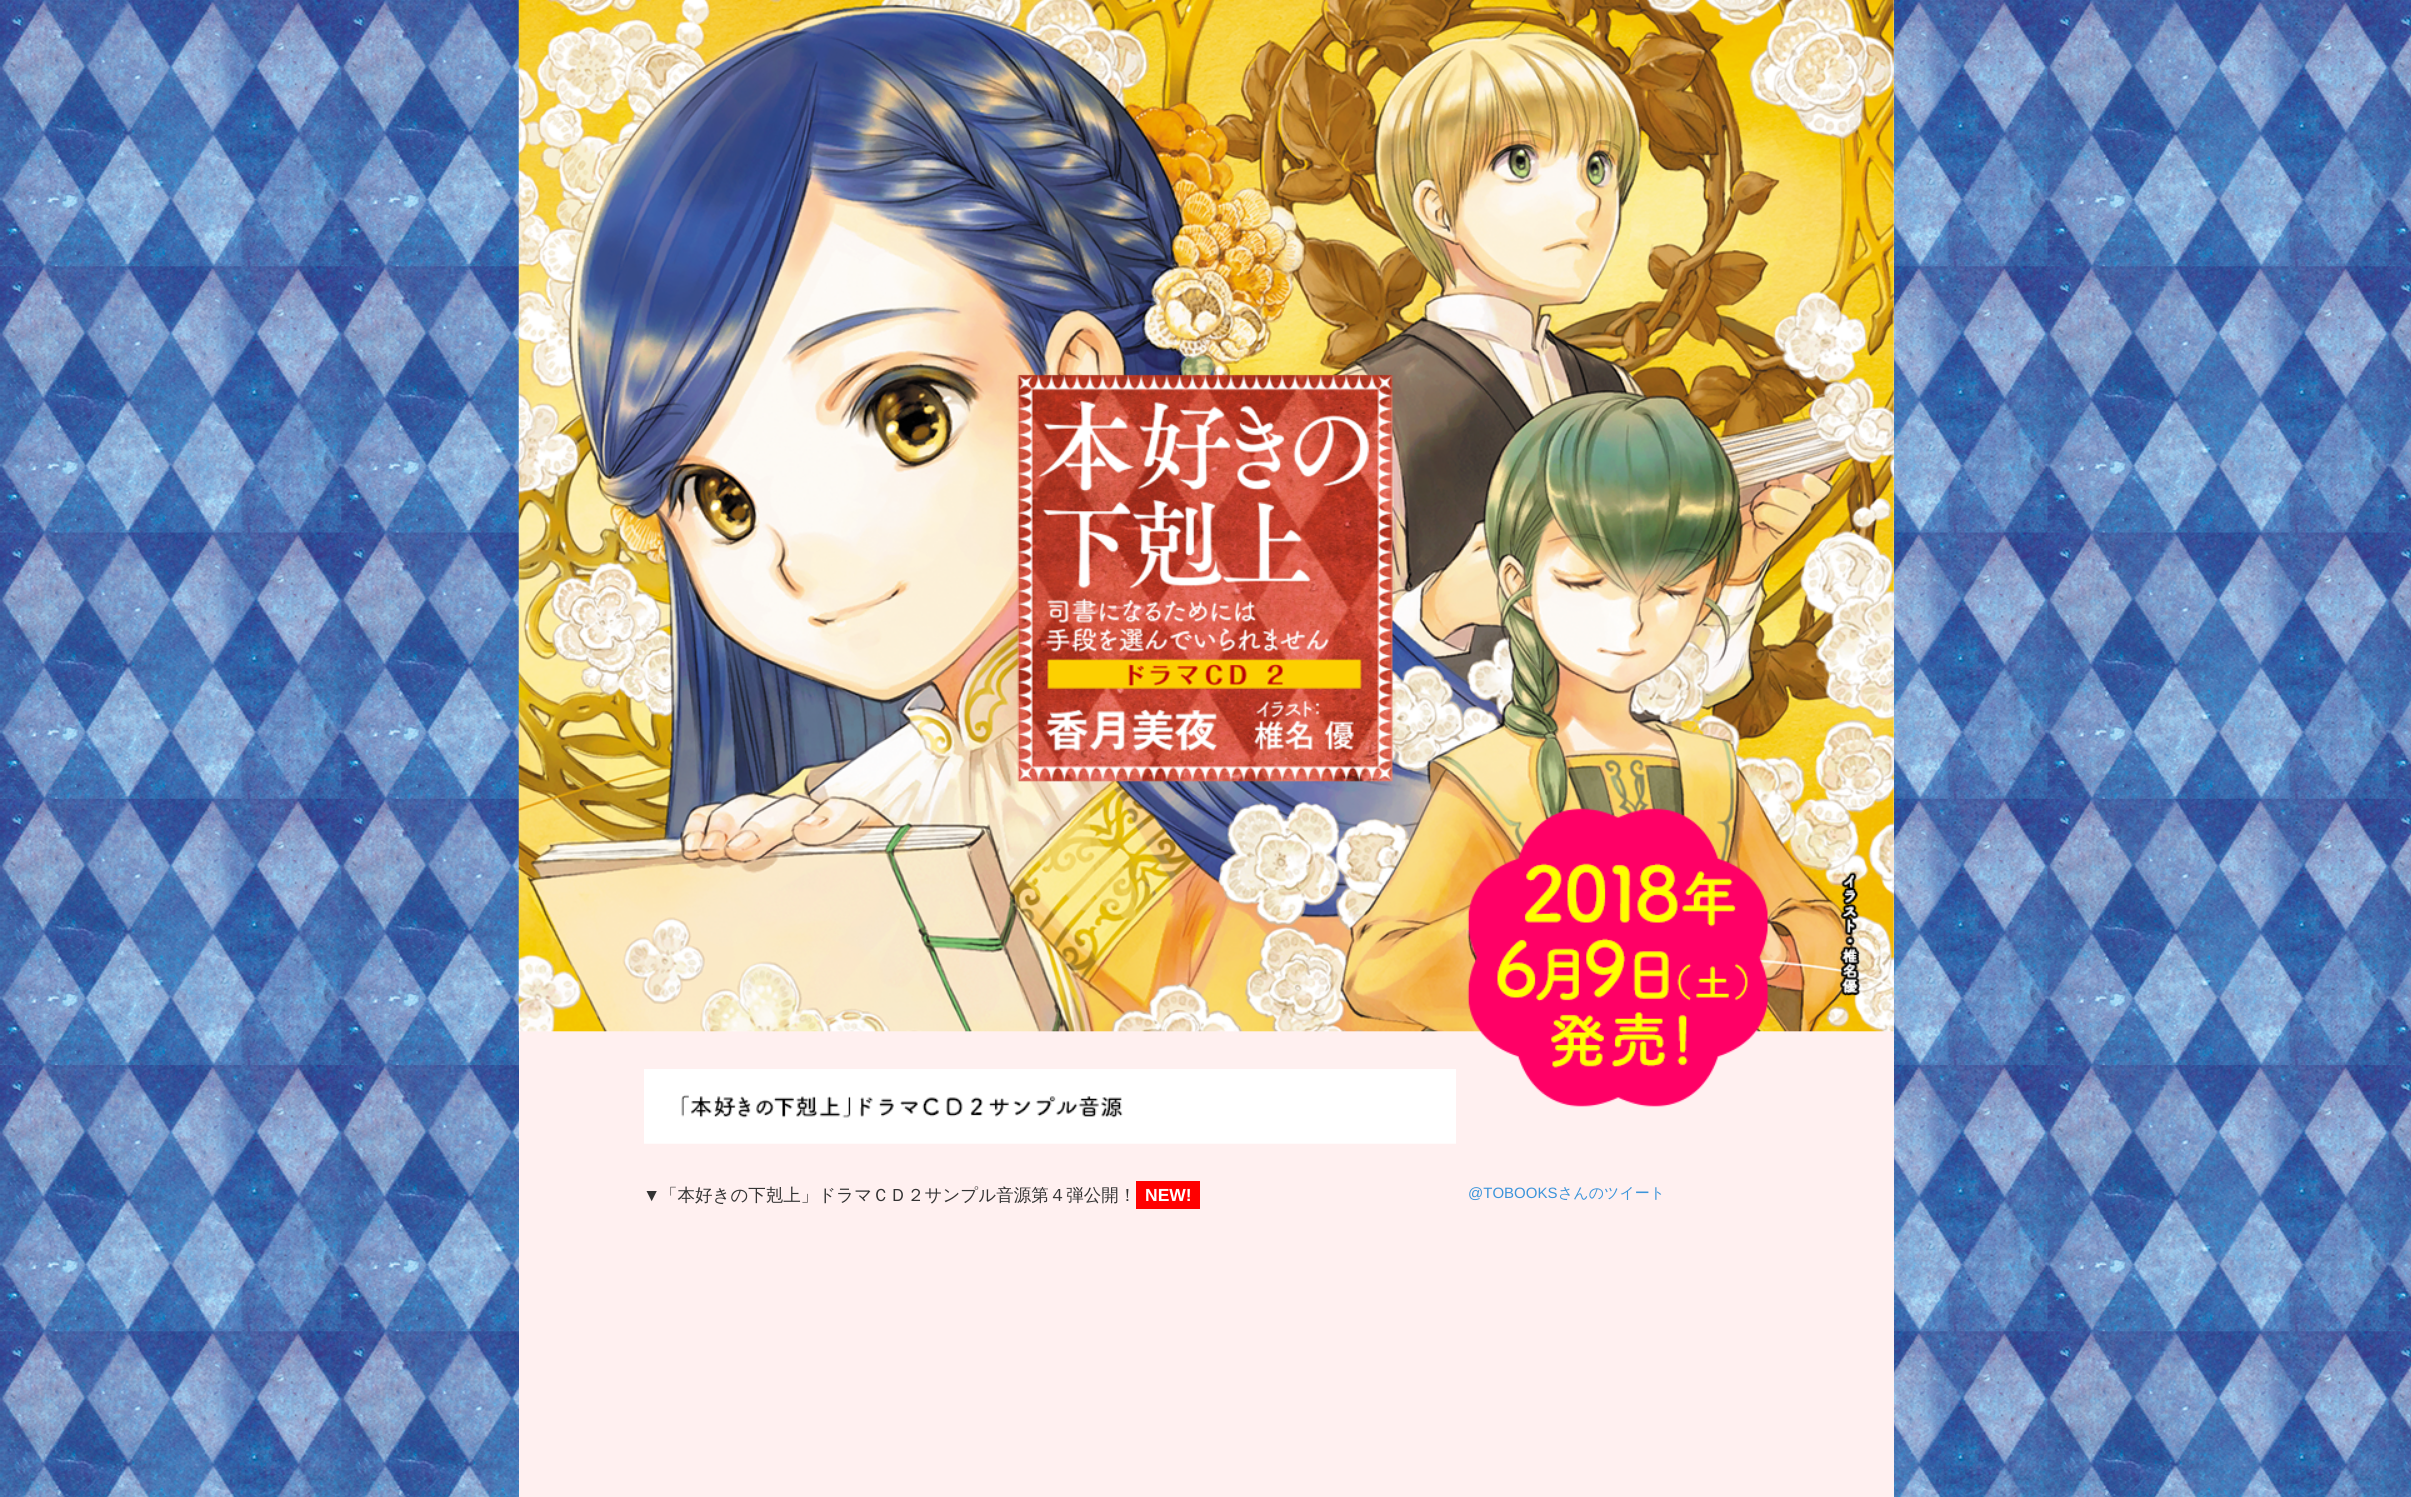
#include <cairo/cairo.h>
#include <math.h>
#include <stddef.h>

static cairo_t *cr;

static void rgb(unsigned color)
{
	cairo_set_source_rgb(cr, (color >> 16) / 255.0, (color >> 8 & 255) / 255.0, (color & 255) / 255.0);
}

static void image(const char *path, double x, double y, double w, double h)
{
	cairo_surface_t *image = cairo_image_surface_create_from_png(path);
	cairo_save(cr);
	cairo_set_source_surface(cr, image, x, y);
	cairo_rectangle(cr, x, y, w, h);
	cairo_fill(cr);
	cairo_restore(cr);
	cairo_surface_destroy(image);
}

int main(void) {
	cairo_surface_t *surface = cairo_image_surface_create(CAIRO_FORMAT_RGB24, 2411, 1497);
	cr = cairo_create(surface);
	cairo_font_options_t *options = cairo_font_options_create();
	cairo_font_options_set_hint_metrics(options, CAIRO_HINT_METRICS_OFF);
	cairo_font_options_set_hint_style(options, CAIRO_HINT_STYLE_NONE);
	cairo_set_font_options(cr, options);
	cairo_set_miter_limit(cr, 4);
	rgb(0xffffff);
	cairo_paint(cr);
	image("img/1.png", 0, 0, 2411, 1497);
	rgb(0xfff0f0);
	cairo_rectangle(cr, 519, 0, 1375, 1497);
	cairo_fill(cr);
	image("img/2.png", 518, 0, 1376, 1107);
	image("img/3.png", 644, 1069, 812, 75);
	rgb(0xff0000);
	cairo_rectangle(cr, 1136, 1181, 64, 28);
	cairo_fill(cr);
	cairo_select_font_face(cr, "Liberation Sans", CAIRO_FONT_SLANT_NORMAL, CAIRO_FONT_WEIGHT_NORMAL);
	cairo_set_font_size(cr, 17.5);
	rgb(0x333333);
	cairo_move_to(cr, 643, 1201);
	cairo_show_text(cr, "▼");
	cairo_select_font_face(cr, "WenQuanYi Zen Hei Medium", CAIRO_FONT_SLANT_NORMAL, CAIRO_FONT_WEIGHT_NORMAL);
	cairo_move_to(cr, 660, 1201);
	cairo_show_text(cr, "「本好きの下剋上」ドラマＣＤ２サンプル音源第４弾公開！");
	cairo_select_font_face(cr, "Liberation Sans", CAIRO_FONT_SLANT_NORMAL, CAIRO_FONT_WEIGHT_BOLD);
	rgb(0xffffff);
	cairo_move_to(cr, 1145, 1201);
	cairo_show_text(cr, "NEW!");
	cairo_select_font_face(cr, "Liberation Sans", CAIRO_FONT_SLANT_NORMAL, CAIRO_FONT_WEIGHT_NORMAL);
	cairo_set_font_size(cr, 15);
	rgb(0x3b94da);
	cairo_move_to(cr, 1468, 1198);
	cairo_show_text(cr, "@TOBOOKS");
	cairo_select_font_face(cr, "WenQuanYi Zen Hei Medium", CAIRO_FONT_SLANT_NORMAL, CAIRO_FONT_WEIGHT_NORMAL);
	cairo_move_to(cr, 1558, 1198);
	cairo_show_text(cr, "さんのツイート");
	cairo_surface_write_to_png(surface, "page.png");
	cairo_font_options_destroy(options);
	cairo_destroy(cr);
	cairo_surface_destroy(surface);
	return 0;
}
